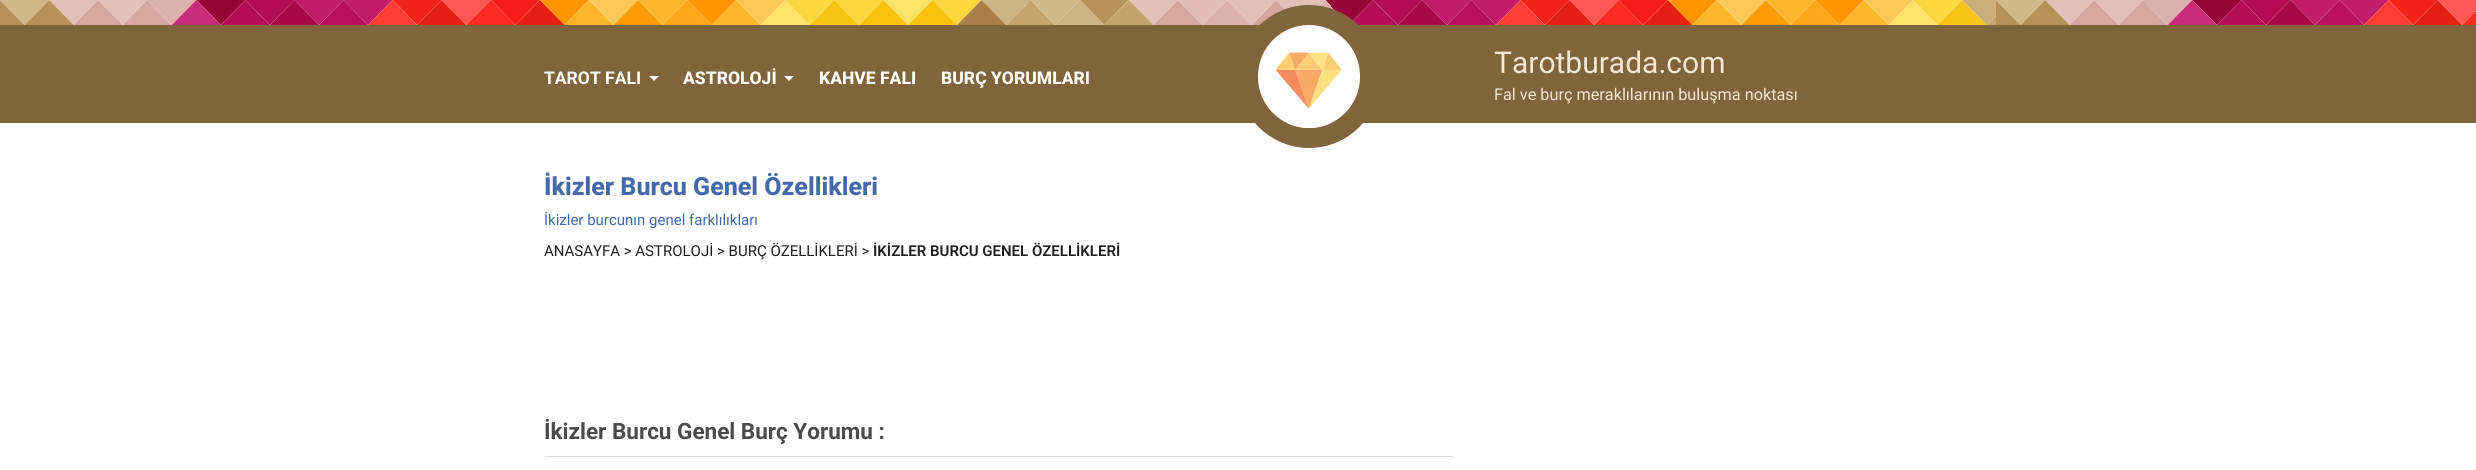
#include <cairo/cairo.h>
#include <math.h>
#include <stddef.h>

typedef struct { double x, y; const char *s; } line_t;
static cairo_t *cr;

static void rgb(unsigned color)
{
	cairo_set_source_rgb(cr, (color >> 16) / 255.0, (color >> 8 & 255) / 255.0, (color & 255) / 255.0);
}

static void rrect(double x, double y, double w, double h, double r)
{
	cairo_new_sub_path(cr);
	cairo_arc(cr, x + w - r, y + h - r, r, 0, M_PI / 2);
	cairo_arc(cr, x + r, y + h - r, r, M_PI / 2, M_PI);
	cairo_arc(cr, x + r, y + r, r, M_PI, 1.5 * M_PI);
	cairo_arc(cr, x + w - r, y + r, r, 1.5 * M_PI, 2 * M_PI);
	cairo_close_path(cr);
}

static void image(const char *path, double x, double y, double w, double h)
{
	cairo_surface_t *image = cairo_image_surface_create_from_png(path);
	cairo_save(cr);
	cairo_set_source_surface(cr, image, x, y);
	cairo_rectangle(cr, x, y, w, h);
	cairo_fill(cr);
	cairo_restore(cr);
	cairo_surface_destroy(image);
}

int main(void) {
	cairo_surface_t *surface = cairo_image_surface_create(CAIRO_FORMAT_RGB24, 2476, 470);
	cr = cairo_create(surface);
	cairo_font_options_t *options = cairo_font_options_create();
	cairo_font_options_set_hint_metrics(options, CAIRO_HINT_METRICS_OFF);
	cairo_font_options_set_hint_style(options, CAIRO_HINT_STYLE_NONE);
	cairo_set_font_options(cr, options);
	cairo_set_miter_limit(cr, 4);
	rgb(0xffffff);
	cairo_paint(cr);
	image("img/1.png", 0, 0, 2476, 25);
	rgb(0x80643c);
	cairo_rectangle(cr, 0, 25, 2476, 98);
	cairo_fill(cr);
	rgb(0xffffff);
	cairo_new_path(cr);
	cairo_move_to(cr, 649, 76);
	cairo_line_to(cr, 659, 76);
	cairo_line_to(cr, 654, 81);
	cairo_close_path(cr);
	cairo_fill(cr);
	cairo_new_path(cr);
	cairo_move_to(cr, 784, 76);
	cairo_line_to(cr, 794, 76);
	cairo_line_to(cr, 789, 81);
	cairo_close_path(cr);
	cairo_fill(cr);
	rrect(1248, 15, 122, 123, 61);
	rgb(0x80643c);
	cairo_set_line_width(cr, 20);
	cairo_stroke(cr);
	rgb(0xffffff);
	rrect(1258, 25, 102, 103, 51);
	cairo_fill(cr);
	image("img/2.png", 1275, 52, 67, 57);
	rgb(0xdedada);
	cairo_rectangle(cr, 545, 456, 908, 1);
	cairo_fill(cr);
	cairo_select_font_face(cr, "Roboto", CAIRO_FONT_SLANT_NORMAL, CAIRO_FONT_WEIGHT_BOLD);
	cairo_set_font_size(cr, 17.5);
	rgb(0xffffff);
	cairo_move_to(cr, 544, 84);
	cairo_show_text(cr, "TAROT FALI");
	cairo_select_font_face(cr, "Roboto ExtraBold", CAIRO_FONT_SLANT_NORMAL, CAIRO_FONT_WEIGHT_NORMAL);
	{
		static const line_t items[] = {
			{683, 84, "ASTROLOJİ"},
			{819, 84, "KAHVE FALI"},
			{941, 84, "BURÇ YORUMLARI"},
		};
		for (size_t i = 0; i < sizeof items / sizeof *items; i++) {
			cairo_move_to(cr, items[i].x, items[i].y);
			cairo_show_text(cr, items[i].s);
		}
	}
	cairo_select_font_face(cr, "Roboto", CAIRO_FONT_SLANT_NORMAL, CAIRO_FONT_WEIGHT_NORMAL);
	cairo_set_font_size(cr, 30);
	rgb(0xf4e8d2);
	cairo_move_to(cr, 1494, 73);
	cairo_show_text(cr, "Tarotburada.com");
	cairo_set_font_size(cr, 16.25);
	cairo_move_to(cr, 1494, 100);
	cairo_show_text(cr, "Fal ve burç meraklılarının buluşma noktası");
	cairo_select_font_face(cr, "Roboto ExtraBold", CAIRO_FONT_SLANT_NORMAL, CAIRO_FONT_WEIGHT_NORMAL);
	cairo_set_font_size(cr, 25);
	rgb(0x4369a8);
	cairo_move_to(cr, 544, 195);
	cairo_show_text(cr, "İkizler Burcu Genel Özellikleri");
	cairo_select_font_face(cr, "Roboto", CAIRO_FONT_SLANT_NORMAL, CAIRO_FONT_WEIGHT_NORMAL);
	cairo_set_font_size(cr, 15);
	cairo_move_to(cr, 544, 225);
	cairo_show_text(cr, "İkizler burcunın genel farklılıkları");
	rgb(0x1f1f1f);
	cairo_move_to(cr, 544, 256);
	cairo_show_text(cr, "ANASAYFA > ASTROLOJİ > BURÇ ÖZELLİKLERİ >");
	cairo_select_font_face(cr, "Roboto SemiBold", CAIRO_FONT_SLANT_NORMAL, CAIRO_FONT_WEIGHT_NORMAL);
	cairo_move_to(cr, 873, 256);
	cairo_show_text(cr, "İKİZLER BURCU GENEL ÖZELLİKLERİ");
	cairo_select_font_face(cr, "Roboto", CAIRO_FONT_SLANT_NORMAL, CAIRO_FONT_WEIGHT_BOLD);
	cairo_set_font_size(cr, 22.5);
	rgb(0x4b4b4b);
	cairo_move_to(cr, 544, 439);
	cairo_show_text(cr, "İkizler Burcu Genel Burç Yorumu :");
	cairo_surface_write_to_png(surface, "page.png");
	cairo_font_options_destroy(options);
	cairo_destroy(cr);
	cairo_surface_destroy(surface);
	return 0;
}
